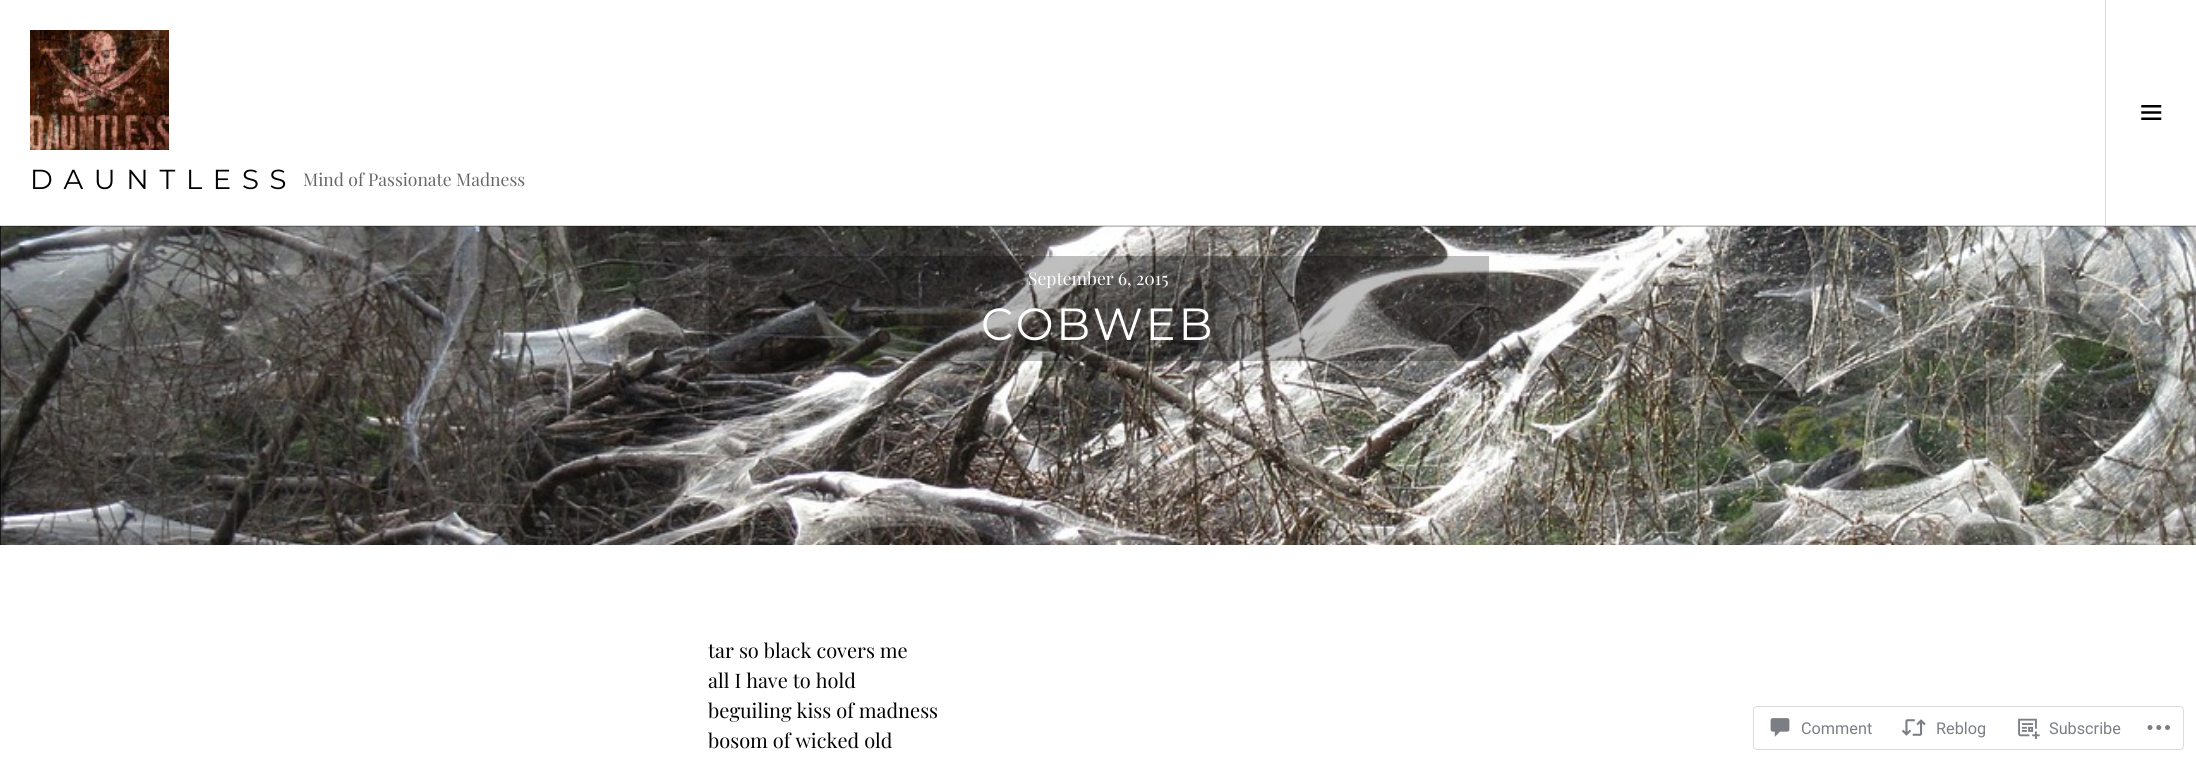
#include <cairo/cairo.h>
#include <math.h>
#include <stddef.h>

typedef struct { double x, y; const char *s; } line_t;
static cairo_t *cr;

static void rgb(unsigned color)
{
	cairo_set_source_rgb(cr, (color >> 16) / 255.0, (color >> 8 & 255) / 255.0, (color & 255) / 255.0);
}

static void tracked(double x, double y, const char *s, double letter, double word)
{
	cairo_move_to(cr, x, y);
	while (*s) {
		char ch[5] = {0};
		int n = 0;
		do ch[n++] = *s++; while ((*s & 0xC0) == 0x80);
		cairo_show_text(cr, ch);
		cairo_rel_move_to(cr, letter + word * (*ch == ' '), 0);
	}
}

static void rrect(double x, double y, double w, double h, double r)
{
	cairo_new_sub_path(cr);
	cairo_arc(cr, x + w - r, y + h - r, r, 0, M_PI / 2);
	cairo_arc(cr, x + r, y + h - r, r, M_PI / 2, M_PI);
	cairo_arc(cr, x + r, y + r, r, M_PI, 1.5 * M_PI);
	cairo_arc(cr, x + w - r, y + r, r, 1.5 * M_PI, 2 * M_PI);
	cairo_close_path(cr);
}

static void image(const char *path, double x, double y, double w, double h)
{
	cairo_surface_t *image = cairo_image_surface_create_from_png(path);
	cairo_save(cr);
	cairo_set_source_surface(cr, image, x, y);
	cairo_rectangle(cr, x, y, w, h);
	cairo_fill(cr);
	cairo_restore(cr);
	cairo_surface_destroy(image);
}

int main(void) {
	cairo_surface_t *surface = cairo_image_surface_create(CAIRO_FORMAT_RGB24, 2196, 762);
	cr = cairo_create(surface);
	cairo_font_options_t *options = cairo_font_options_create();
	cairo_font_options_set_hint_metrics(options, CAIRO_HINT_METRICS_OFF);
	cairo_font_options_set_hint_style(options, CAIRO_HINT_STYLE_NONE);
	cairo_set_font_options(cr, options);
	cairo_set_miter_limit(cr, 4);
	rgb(0xffffff);
	cairo_paint(cr);
	rgb(0xd9d9d9);
	cairo_rectangle(cr, 0, 225, 2196, 1);
	cairo_fill(cr);
	image("img/1.png", 30, 30, 139, 120);
	cairo_rectangle(cr, 2105, 0, 1, 225);
	cairo_fill(cr);
	image("img/2.png", 2141, 105, 21, 15);
	rgb(0x000000);
	cairo_rectangle(cr, 0, 226, 2196, 319);
	cairo_fill(cr);
	image("img/3.png", 0, 226, 2196, 319);
	cairo_set_source_rgba(cr, 0, 0, 0, 0.25);
	cairo_rectangle(cr, 709, 256, 780, 105);
	cairo_fill(cr);
	rrect(1753.5, 706.5, 430, 43, 3.5);
	rgb(0xdddddf);
	cairo_set_line_width(cr, 1);
	cairo_stroke(cr);
	image("img/4.png", 1770, 718, 20, 19);
	image("img/5.png", 1901, 719, 25, 17);
	image("img/6.png", 2018, 718, 22, 22);
	image("img/7.png", 2147, 725, 23, 5);
	cairo_select_font_face(cr, "Montserrat", CAIRO_FONT_SLANT_NORMAL, CAIRO_FONT_WEIGHT_NORMAL);
	cairo_set_font_size(cr, 27.5);
	rgb(0x000000);
	tracked(30, 189, "D A U N T L E S S", 1.75, 0);
	cairo_select_font_face(cr, "Playfair Display", CAIRO_FONT_SLANT_NORMAL, CAIRO_FONT_WEIGHT_NORMAL);
	cairo_set_font_size(cr, 17.5);
	rgb(0x666666);
	cairo_move_to(cr, 303, 186);
	cairo_show_text(cr, "Mind of Passionate Madness");
	rgb(0xffffff);
	cairo_move_to(cr, 1028, 285);
	cairo_show_text(cr, "September 6, 2015");
	cairo_select_font_face(cr, "Montserrat", CAIRO_FONT_SLANT_NORMAL, CAIRO_FONT_WEIGHT_NORMAL);
	cairo_set_font_size(cr, 45);
	tracked(981, 340, "COBWEB", 2.75, 0);
	cairo_select_font_face(cr, "Playfair Display", CAIRO_FONT_SLANT_NORMAL, CAIRO_FONT_WEIGHT_NORMAL);
	cairo_set_font_size(cr, 20);
	rgb(0x000000);
	{
		static const line_t items[] = {
			{708, 658, "tar so black covers me"},
			{708, 688, "all I have to hold"},
			{708, 718, "beguiling kiss of madness"},
			{708, 748, "bosom of wicked old"},
		};
		for (size_t i = 0; i < sizeof items / sizeof *items; i++) {
			cairo_move_to(cr, items[i].x, items[i].y);
			cairo_show_text(cr, items[i].s);
		}
	}
	cairo_select_font_face(cr, "Roboto", CAIRO_FONT_SLANT_NORMAL, CAIRO_FONT_WEIGHT_NORMAL);
	cairo_set_font_size(cr, 16.25);
	rgb(0x7b7f85);
	{
		static const line_t items[] = {
			{1801, 734, "Comment"},
			{1936, 734, "Reblog"},
			{2049, 734, "Subscribe"},
		};
		for (size_t i = 0; i < sizeof items / sizeof *items; i++) {
			cairo_move_to(cr, items[i].x, items[i].y);
			cairo_show_text(cr, items[i].s);
		}
	}
	cairo_surface_write_to_png(surface, "page.png");
	cairo_font_options_destroy(options);
	cairo_destroy(cr);
	cairo_surface_destroy(surface);
	return 0;
}
